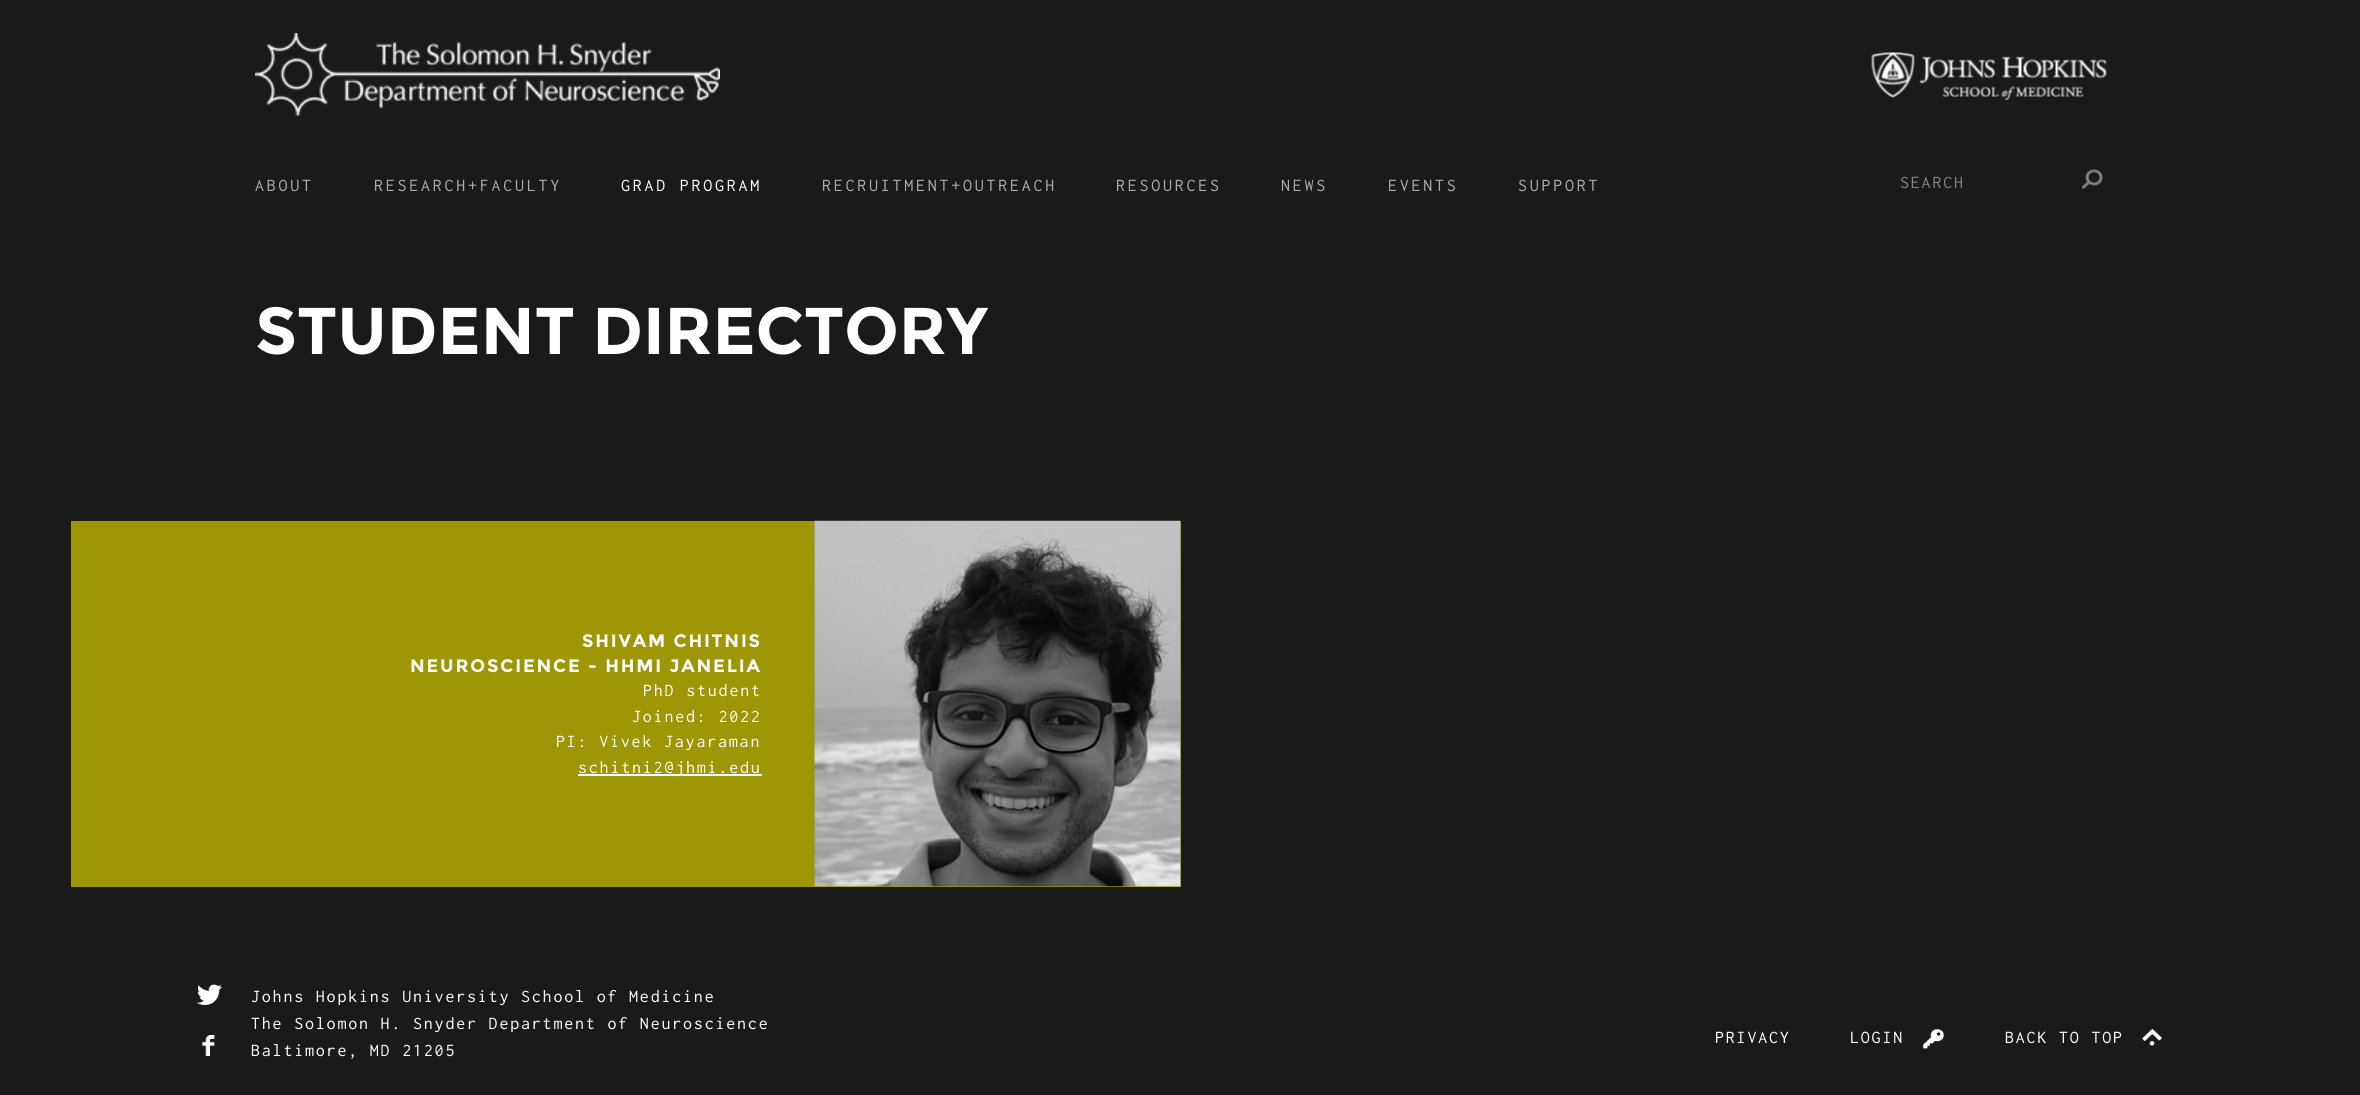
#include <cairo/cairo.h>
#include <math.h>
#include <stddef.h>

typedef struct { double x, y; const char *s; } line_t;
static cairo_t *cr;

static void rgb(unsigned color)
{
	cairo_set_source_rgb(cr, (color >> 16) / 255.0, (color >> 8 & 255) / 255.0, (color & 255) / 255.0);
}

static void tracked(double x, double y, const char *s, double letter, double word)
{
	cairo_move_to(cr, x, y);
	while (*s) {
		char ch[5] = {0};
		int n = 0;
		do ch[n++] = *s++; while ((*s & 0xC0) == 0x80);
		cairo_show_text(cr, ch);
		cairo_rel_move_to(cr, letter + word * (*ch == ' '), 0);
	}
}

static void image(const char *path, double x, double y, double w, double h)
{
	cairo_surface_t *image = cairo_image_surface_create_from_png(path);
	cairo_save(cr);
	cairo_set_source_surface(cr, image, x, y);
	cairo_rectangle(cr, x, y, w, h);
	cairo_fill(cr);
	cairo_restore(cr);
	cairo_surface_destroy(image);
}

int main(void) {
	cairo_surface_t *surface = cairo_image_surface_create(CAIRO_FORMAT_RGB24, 2360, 1095);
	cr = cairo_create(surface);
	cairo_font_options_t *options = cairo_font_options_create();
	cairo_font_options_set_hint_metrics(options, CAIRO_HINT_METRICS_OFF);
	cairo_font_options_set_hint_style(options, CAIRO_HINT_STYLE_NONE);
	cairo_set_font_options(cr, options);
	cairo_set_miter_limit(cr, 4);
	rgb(0x1a1a1a);
	cairo_paint(cr);
	image("img/1.png", 255, 33, 465, 83);
	image("img/2.png", 1871, 52, 236, 49);
	image("img/3.png", 2081, 169, 22, 21);
	rgb(0x9e9605);
	cairo_rectangle(cr, 71, 521, 1110, 366);
	cairo_fill(cr);
	rgb(0xffffff);
	cairo_rectangle(cr, 578, 774, 184, 2);
	cairo_fill(cr);
	image("img/4.png", 814, 520, 367, 367);
	image("img/5.png", 196, 984, 26, 21);
	image("img/6.png", 201, 1035, 14, 21);
	image("img/7.png", 1923, 1029, 21, 20);
	image("img/8.png", 2142, 1029, 20, 17);
	cairo_select_font_face(cr, "Inconsolata", CAIRO_FONT_SLANT_NORMAL, CAIRO_FONT_WEIGHT_NORMAL);
	cairo_set_font_size(cr, 18);
	rgb(0xacaeae);
	tracked(255, 191, "ABOUT", 2.75, 0);
	tracked(374, 191, "RESEARCH+FACULTY", 2.75, 0);
	rgb(0xffffff);
	tracked(621, 191, "GRAD PROGRAM", 2.75, 0);
	rgb(0xacaeae);
	{
		static const line_t items[] = {
			{822, 191, "RECRUITMENT+OUTREACH"},
			{1116, 191, "RESOURCES"},
			{1281, 191, "NEWS"},
			{1388, 191, "EVENTS"},
			{1518, 191, "SUPPORT"},
		};
		for (size_t i = 0; i < sizeof items / sizeof *items; i++) {
			tracked(items[i].x, items[i].y, items[i].s, 2.75, 0);
		}
	}
	rgb(0x838686);
	tracked(1900, 188, "SEARCH", 1.8, 0);
	cairo_select_font_face(cr, "Montserrat", CAIRO_FONT_SLANT_NORMAL, CAIRO_FONT_WEIGHT_BOLD);
	cairo_set_font_size(cr, 66);
	rgb(0xffffff);
	cairo_move_to(cr, 255, 354);
	cairo_show_text(cr, "STUDENT DIRECTORY");
	cairo_set_font_size(cr, 18);
	tracked(582, 647, "SHIVAM CHITNIS", 1.8, 0);
	tracked(410, 672, "NEUROSCIENCE - HHMI JANELIA", 1.8, 0);
	cairo_select_font_face(cr, "Inconsolata", CAIRO_FONT_SLANT_NORMAL, CAIRO_FONT_WEIGHT_NORMAL);
	{
		static const line_t items[] = {
			{643, 696, "PhD student"},
			{632, 722, "Joined: 2022"},
			{556, 747, "PI: Vivek Jayaraman"},
			{578, 773, "schitni2@jhmi.edu"},
			{251, 1002, "Johns Hopkins University School of Medicine"},
			{251, 1029, "The Solomon H. Snyder Department of Neuroscience"},
			{251, 1056, "Baltimore, MD 21205"},
			{1715, 1043, "PRIVACY"},
			{1850, 1043, "LOGIN"},
			{2005, 1043, "BACK TO TOP"},
		};
		for (size_t i = 0; i < sizeof items / sizeof *items; i++) {
			tracked(items[i].x, items[i].y, items[i].s, 1.8, 0);
		}
	}
	cairo_surface_write_to_png(surface, "page.png");
	cairo_font_options_destroy(options);
	cairo_destroy(cr);
	cairo_surface_destroy(surface);
	return 0;
}
